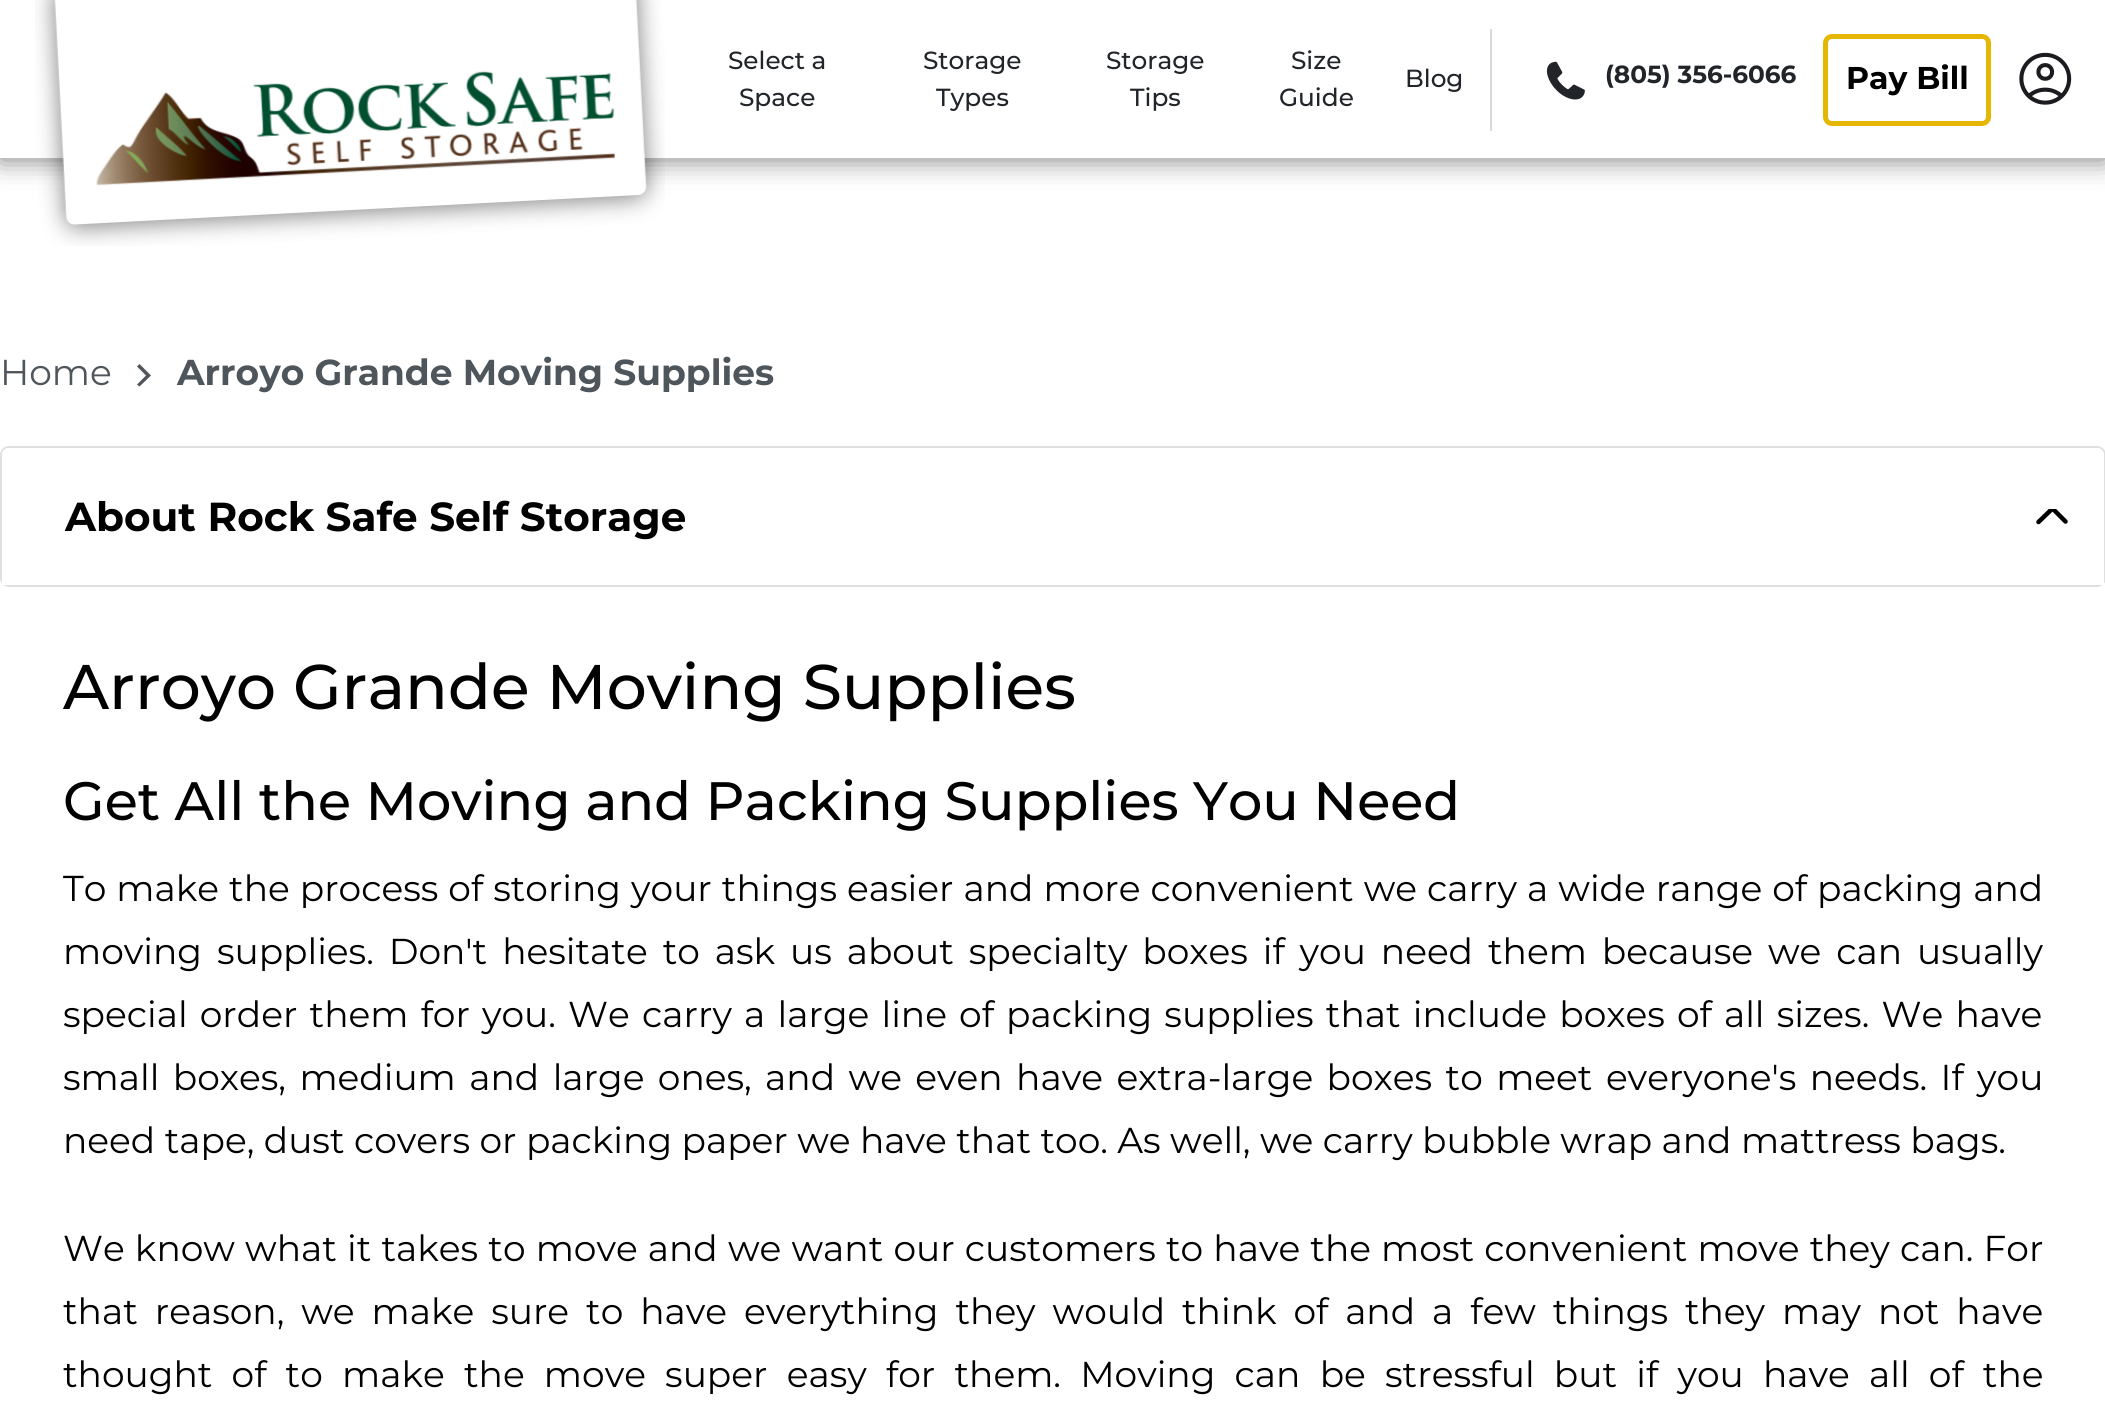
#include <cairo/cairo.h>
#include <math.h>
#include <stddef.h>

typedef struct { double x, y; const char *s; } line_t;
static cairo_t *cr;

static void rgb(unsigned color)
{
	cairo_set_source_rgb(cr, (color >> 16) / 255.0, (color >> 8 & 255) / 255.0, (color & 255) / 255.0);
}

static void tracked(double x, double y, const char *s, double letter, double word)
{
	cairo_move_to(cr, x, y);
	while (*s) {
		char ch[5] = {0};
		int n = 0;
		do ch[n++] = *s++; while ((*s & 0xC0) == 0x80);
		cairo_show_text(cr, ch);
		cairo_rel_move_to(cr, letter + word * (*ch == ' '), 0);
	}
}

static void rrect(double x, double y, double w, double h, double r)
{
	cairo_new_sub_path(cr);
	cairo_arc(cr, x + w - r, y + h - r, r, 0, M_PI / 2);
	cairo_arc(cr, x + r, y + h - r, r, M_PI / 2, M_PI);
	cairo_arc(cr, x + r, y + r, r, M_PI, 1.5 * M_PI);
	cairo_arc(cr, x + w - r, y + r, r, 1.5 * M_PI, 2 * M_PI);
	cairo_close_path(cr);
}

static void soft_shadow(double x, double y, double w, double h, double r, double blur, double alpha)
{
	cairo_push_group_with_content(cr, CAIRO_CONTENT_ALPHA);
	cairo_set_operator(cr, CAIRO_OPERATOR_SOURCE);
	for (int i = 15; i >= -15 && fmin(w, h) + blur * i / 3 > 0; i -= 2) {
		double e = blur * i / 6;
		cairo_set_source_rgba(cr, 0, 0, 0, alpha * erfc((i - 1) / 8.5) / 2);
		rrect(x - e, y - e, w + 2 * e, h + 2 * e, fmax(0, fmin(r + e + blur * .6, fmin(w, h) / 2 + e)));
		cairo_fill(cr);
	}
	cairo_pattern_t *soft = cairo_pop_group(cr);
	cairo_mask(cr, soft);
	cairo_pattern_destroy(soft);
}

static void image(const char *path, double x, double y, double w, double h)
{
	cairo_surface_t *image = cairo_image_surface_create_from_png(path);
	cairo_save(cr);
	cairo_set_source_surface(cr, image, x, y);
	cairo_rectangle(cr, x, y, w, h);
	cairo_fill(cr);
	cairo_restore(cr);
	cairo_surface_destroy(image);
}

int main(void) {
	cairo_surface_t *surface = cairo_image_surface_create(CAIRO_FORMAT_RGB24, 2105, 1406);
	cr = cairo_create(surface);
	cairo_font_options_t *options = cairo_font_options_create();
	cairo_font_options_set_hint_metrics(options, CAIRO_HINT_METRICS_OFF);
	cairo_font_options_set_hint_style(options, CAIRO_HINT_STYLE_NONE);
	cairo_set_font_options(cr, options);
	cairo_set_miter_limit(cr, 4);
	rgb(0xffffff);
	cairo_paint(cr);
	rgb(0x000000);
	soft_shadow(0, 2, 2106, 158, 0, 13.5, 0.5);
	rgb(0xffffff);
	cairo_rectangle(cr, 0, 0, 2105, 158);
	cairo_fill(cr);
	image("img/1.png", 35, 0, 630, 246);
	rgb(0xd8d8d8);
	cairo_rectangle(cr, 1490, 29, 2, 102);
	cairo_fill(cr);
	image("img/2.png", 1546, 61, 39, 39);
	rrect(1825.5, 36.5, 163, 87, 6.5);
	rgb(0xe5b702);
	cairo_set_line_width(cr, 5);
	cairo_stroke(cr);
	image("img/3.png", 2019, 52, 53, 53);
	rgb(0x4e555b);
	cairo_new_path(cr);
	cairo_move_to(cr, 137, 384.5);
	cairo_line_to(cr, 139.5, 386.5);
	cairo_line_to(cr, 151, 375.5);
	cairo_line_to(cr, 139.5, 364);
	cairo_line_to(cr, 137, 366.5);
	cairo_line_to(cr, 146, 375.5);
	cairo_close_path(cr);
	cairo_fill(cr);
	rrect(1, 447, 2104, 139, 8);
	rgb(0xdfdfdf);
	cairo_set_line_width(cr, 2);
	cairo_stroke(cr);
	rgb(0xffffff);
	cairo_new_path(cr);
	cairo_move_to(cr, 9, 448);
	cairo_line_to(cr, 2097, 448);
	cairo_curve_to(cr, 2101, 448, 2104, 451, 2104, 455);
	cairo_line_to(cr, 2104, 585);
	cairo_line_to(cr, 2, 585);
	cairo_line_to(cr, 2, 455);
	cairo_curve_to(cr, 2, 451, 5, 448, 9, 448);
	cairo_close_path(cr);
	cairo_fill(cr);
	cairo_save(cr);
	cairo_rectangle(cr, 2036, 509, 32, 18);
	cairo_clip(cr);
	cairo_new_path(cr);
	cairo_move_to(cr, 2038.5, 522);
	cairo_line_to(cr, 2052.5, 508.5);
	cairo_line_to(cr, 2065.5, 521.5);
	rgb(0x000000);
	cairo_set_line_width(cr, 4.5);
	cairo_set_line_cap(cr, CAIRO_LINE_CAP_ROUND);
	cairo_set_line_join(cr, CAIRO_LINE_JOIN_ROUND);
	cairo_stroke(cr);
	cairo_restore(cr);
	cairo_select_font_face(cr, "Montserrat Medium", CAIRO_FONT_SLANT_NORMAL, CAIRO_FONT_WEIGHT_NORMAL);
	cairo_set_font_size(cr, 24.75);
	rgb(0x212529);
	{
		static const line_t items[] = {
			{728, 69, "Select a"},
			{739, 106, "Space"},
			{923, 69, "Storage"},
			{936, 106, "Types"},
			{1106, 69, "Storage"},
			{1130, 106, "Tips"},
			{1291, 69, "Size"},
			{1279, 106, "Guide"},
			{1405, 87, "Blog"},
		};
		for (size_t i = 0; i < sizeof items / sizeof *items; i++) {
			cairo_move_to(cr, items[i].x, items[i].y);
			cairo_show_text(cr, items[i].s);
		}
	}
	cairo_select_font_face(cr, "Montserrat", CAIRO_FONT_SLANT_NORMAL, CAIRO_FONT_WEIGHT_BOLD);
	cairo_move_to(cr, 1605, 83);
	cairo_show_text(cr, "(805) 356-6066");
	cairo_set_font_size(cr, 31.5);
	rgb(0x000000);
	cairo_move_to(cr, 1846, 89);
	cairo_show_text(cr, "Pay Bill");
	cairo_select_font_face(cr, "Montserrat", CAIRO_FONT_SLANT_NORMAL, CAIRO_FONT_WEIGHT_NORMAL);
	cairo_set_font_size(cr, 36);
	rgb(0x4e555b);
	cairo_move_to(cr, 0, 385);
	cairo_show_text(cr, "Home");
	cairo_select_font_face(cr, "Montserrat", CAIRO_FONT_SLANT_NORMAL, CAIRO_FONT_WEIGHT_BOLD);
	cairo_move_to(cr, 177, 385);
	cairo_show_text(cr, "Arroyo Grande Moving Supplies");
	cairo_set_font_size(cr, 40.5);
	rgb(0x000000);
	cairo_move_to(cr, 65, 531);
	cairo_show_text(cr, "About Rock Safe Self Storage");
	cairo_select_font_face(cr, "Montserrat Medium", CAIRO_FONT_SLANT_NORMAL, CAIRO_FONT_WEIGHT_NORMAL);
	cairo_set_font_size(cr, 63);
	cairo_move_to(cr, 63, 709);
	cairo_show_text(cr, "Arroyo Grande Moving Supplies");
	cairo_set_font_size(cr, 54);
	cairo_move_to(cr, 63, 820);
	cairo_show_text(cr, "Get All the Moving and Packing Supplies You Need");
	cairo_select_font_face(cr, "Montserrat", CAIRO_FONT_SLANT_NORMAL, CAIRO_FONT_WEIGHT_NORMAL);
	cairo_set_font_size(cr, 36);
	tracked(63, 901, "To make the process of storing your things easier and more convenient we carry a wide range of packing and", 0, 0.6);
	tracked(63, 964, "moving supplies. Don't hesitate to ask us about specialty boxes if you need them because we can usually", 0, 5.5);
	tracked(63, 1027, "special order them for you. We carry a large line of packing supplies that include boxes of all sizes. We have", 0, 2.75);
	tracked(63, 1090, "small boxes, medium and large ones, and we even have extra-large boxes to meet everyone's needs. If you", 0, 4);
	cairo_move_to(cr, 63, 1153);
	cairo_show_text(cr, "need tape, dust covers or packing paper we have that too. As well, we carry bubble wrap and mattress bags.");
	tracked(63, 1261, "We know what it takes to move and we want our customers to have the most convenient move they can. For", 0, 0.7);
	tracked(63, 1324, "that reason, we make sure to have everything they would think of and a few things they may not have", 0, 7.5);
	tracked(63, 1387, "thought of to make the move super easy for them. Moving can be stressful but if you have all of the", 0, 9.8);
	cairo_surface_write_to_png(surface, "page.png");
	cairo_font_options_destroy(options);
	cairo_destroy(cr);
	cairo_surface_destroy(surface);
	return 0;
}
